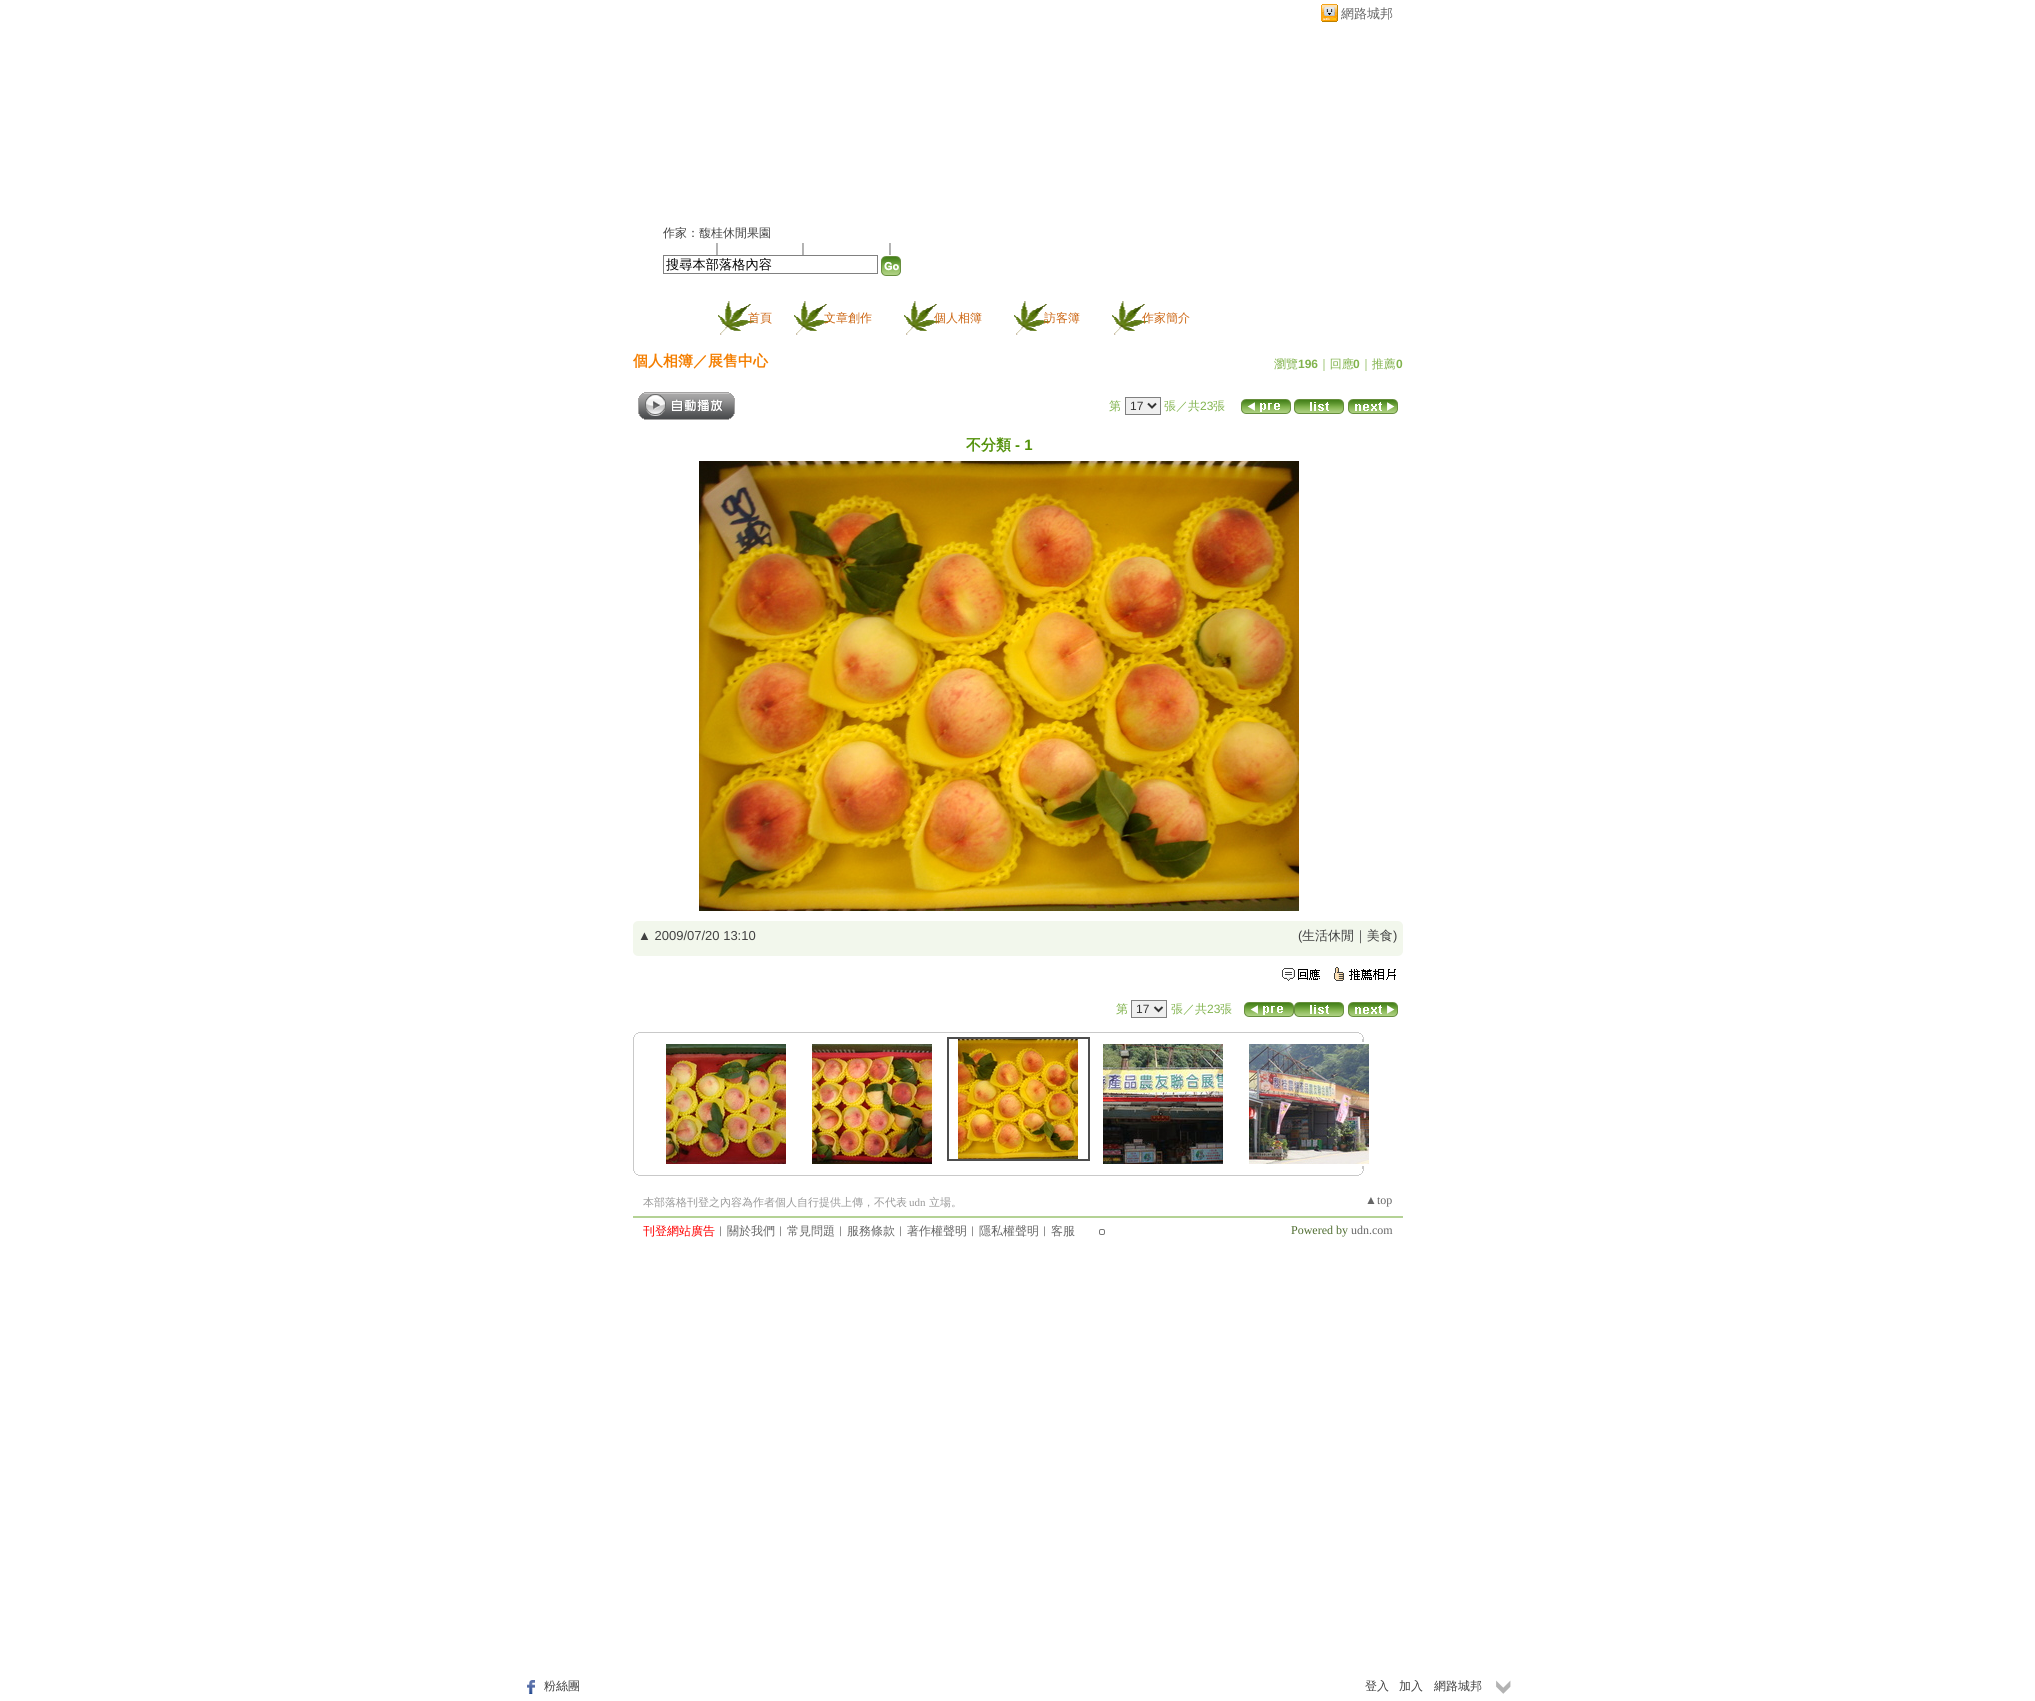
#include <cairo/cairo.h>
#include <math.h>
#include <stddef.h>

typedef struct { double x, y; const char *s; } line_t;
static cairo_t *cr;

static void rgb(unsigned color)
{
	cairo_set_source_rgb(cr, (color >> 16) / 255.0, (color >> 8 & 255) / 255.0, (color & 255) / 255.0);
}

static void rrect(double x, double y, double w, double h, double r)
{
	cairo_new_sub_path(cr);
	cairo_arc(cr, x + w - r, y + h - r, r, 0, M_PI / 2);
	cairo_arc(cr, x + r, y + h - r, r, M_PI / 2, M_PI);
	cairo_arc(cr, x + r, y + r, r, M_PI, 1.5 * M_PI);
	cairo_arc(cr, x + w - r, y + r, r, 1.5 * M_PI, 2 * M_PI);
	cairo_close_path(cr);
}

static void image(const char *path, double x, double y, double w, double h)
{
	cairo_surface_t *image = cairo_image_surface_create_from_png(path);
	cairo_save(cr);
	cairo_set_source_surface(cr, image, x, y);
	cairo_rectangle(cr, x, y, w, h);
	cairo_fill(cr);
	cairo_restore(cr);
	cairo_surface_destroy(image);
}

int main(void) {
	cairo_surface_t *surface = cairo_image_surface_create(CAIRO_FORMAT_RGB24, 2035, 1701);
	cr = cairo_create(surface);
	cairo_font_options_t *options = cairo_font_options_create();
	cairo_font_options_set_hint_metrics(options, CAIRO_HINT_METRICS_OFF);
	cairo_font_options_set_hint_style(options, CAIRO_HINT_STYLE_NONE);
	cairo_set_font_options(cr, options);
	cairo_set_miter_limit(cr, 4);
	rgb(0xffffff);
	cairo_paint(cr);
	image("img/1.png", 1321, 4, 17, 18);
	cairo_rectangle(cr, 663.5, 255.5, 214, 18);
	rgb(0x808080);
	cairo_set_line_width(cr, 1);
	cairo_stroke(cr);
	image("img/2.png", 881, 256, 20, 20);
	image("img/3.png", 718, 301, 36, 34);
	image("img/4.png", 794, 301, 36, 34);
	image("img/3.png", 904, 301, 36, 34);
	image("img/3.png", 1014, 301, 36, 34);
	image("img/3.png", 1112, 301, 36, 34);
	image("img/5.png", 638, 392, 97, 28);
	rgb(0xefefef);
	cairo_rectangle(cr, 1125.5, 397.5, 35, 17);
	cairo_fill_preserve(cr);
	rgb(0x808080);
	cairo_stroke(cr);
	cairo_new_path(cr);
	cairo_move_to(cr, 1148, 403.5);
	cairo_line_to(cr, 1152, 407.5);
	cairo_line_to(cr, 1156, 403.5);
	rgb(0x333333);
	cairo_set_line_width(cr, 2);
	cairo_stroke(cr);
	image("img/6.png", 1241, 399, 50, 15);
	image("img/7.png", 1294, 399, 50, 15);
	image("img/8.png", 1348, 399, 50, 15);
	image("img/9.png", 699, 461, 600, 450);
	image("img/10.png", 633, 921, 5, 5);
	rgb(0xf2f7ec);
	cairo_rectangle(cr, 638, 921, 760, 5);
	cairo_fill(cr);
	image("img/11.png", 1398, 921, 5, 5);
	cairo_rectangle(cr, 633, 926, 770, 25);
	cairo_fill(cr);
	image("img/12.png", 633, 951, 5, 5);
	cairo_rectangle(cr, 638, 951, 760, 5);
	cairo_fill(cr);
	image("img/13.png", 1398, 951, 5, 5);
	image("img/14.png", 1282, 968, 38, 13);
	image("img/15.png", 1334, 967, 62, 14);
	rgb(0xefefef);
	cairo_rectangle(cr, 1131.5, 1000.5, 35, 17);
	cairo_fill_preserve(cr);
	rgb(0x808080);
	cairo_set_line_width(cr, 1);
	cairo_stroke(cr);
	cairo_new_path(cr);
	cairo_move_to(cr, 1154.5, 1007);
	cairo_line_to(cr, 1158.5, 1011);
	cairo_line_to(cr, 1162.5, 1007);
	rgb(0x333333);
	cairo_set_line_width(cr, 2);
	cairo_stroke(cr);
	image("img/6.png", 1244, 1002, 50, 15);
	image("img/7.png", 1294, 1002, 50, 15);
	image("img/8.png", 1348, 1002, 50, 15);
	image("img/16.png", 633, 1032, 731, 7);
	image("img/17.png", 633, 1039, 731, 130);
	image("img/18.png", 666, 1044, 120, 120);
	image("img/19.png", 812, 1044, 120, 120);
	cairo_rectangle(cr, 948, 1038, 141, 122);
	rgb(0x4d4d4d);
	cairo_stroke(cr);
	image("img/20.png", 958, 1039, 120, 120);
	image("img/21.png", 1103, 1044, 120, 120);
	cairo_rectangle(cr, 1239, 1043, 140, 122);
	rgb(0xffffff);
	cairo_stroke(cr);
	image("img/22.png", 1249, 1044, 120, 120);
	image("img/23.png", 633, 1169, 731, 7);
	rgb(0xb4d295);
	cairo_rectangle(cr, 633, 1216, 770, 2);
	cairo_fill(cr);
	rrect(1099.5, 1229.5, 5, 5, 1.5);
	rgb(0x767676);
	cairo_set_line_width(cr, 1);
	cairo_stroke(cr);
	image("img/24.png", 527, 1680, 8, 14);
	image("img/25.png", 1496, 1680, 15, 14);
	cairo_select_font_face(cr, "WenQuanYi Zen Hei Medium", CAIRO_FONT_SLANT_NORMAL, CAIRO_FONT_WEIGHT_NORMAL);
	cairo_set_font_size(cr, 13);
	rgb(0x666666);
	cairo_move_to(cr, 1341, 18);
	cairo_show_text(cr, "網路城邦");
	cairo_set_font_size(cr, 12);
	rgb(0x414141);
	cairo_move_to(cr, 663, 237);
	cairo_show_text(cr, "作家：馥桂休閒果園");
	rgb(0x333333);
	{
		static const line_t items[] = {
			{711, 252, "｜"},
			{797, 252, "｜"},
			{884, 252, "｜"},
		};
		for (size_t i = 0; i < sizeof items / sizeof *items; i++) {
			cairo_move_to(cr, items[i].x, items[i].y);
			cairo_show_text(cr, items[i].s);
		}
	}
	cairo_set_font_size(cr, 13.25);
	rgb(0x000000);
	cairo_move_to(cr, 666, 269);
	cairo_show_text(cr, "搜尋本部落格內容");
	cairo_set_font_size(cr, 12);
	rgb(0xcc6511);
	{
		static const line_t items[] = {
			{748, 322, "首頁"},
			{824, 322, "文章創作"},
			{934, 322, "個人相簿"},
			{1044, 322, "訪客簿"},
			{1142, 322, "作家簡介"},
		};
		for (size_t i = 0; i < sizeof items / sizeof *items; i++) {
			cairo_move_to(cr, items[i].x, items[i].y);
			cairo_show_text(cr, items[i].s);
		}
	}
	cairo_select_font_face(cr, "WenQuanYi Zen Hei", CAIRO_FONT_SLANT_NORMAL, CAIRO_FONT_WEIGHT_BOLD);
	cairo_set_font_size(cr, 15);
	rgb(0xf47e00);
	cairo_move_to(cr, 633, 366);
	cairo_show_text(cr, "個人相簿／展售中心");
	cairo_select_font_face(cr, "WenQuanYi Zen Hei Medium", CAIRO_FONT_SLANT_NORMAL, CAIRO_FONT_WEIGHT_NORMAL);
	cairo_set_font_size(cr, 12);
	rgb(0x81b34d);
	cairo_move_to(cr, 1274, 368);
	cairo_show_text(cr, "瀏覽");
	cairo_select_font_face(cr, "Liberation Sans", CAIRO_FONT_SLANT_NORMAL, CAIRO_FONT_WEIGHT_BOLD);
	cairo_move_to(cr, 1298, 368);
	cairo_show_text(cr, "196");
	cairo_select_font_face(cr, "WenQuanYi Zen Hei Medium", CAIRO_FONT_SLANT_NORMAL, CAIRO_FONT_WEIGHT_NORMAL);
	cairo_move_to(cr, 1318, 368);
	cairo_show_text(cr, "｜回應");
	cairo_select_font_face(cr, "Liberation Sans", CAIRO_FONT_SLANT_NORMAL, CAIRO_FONT_WEIGHT_BOLD);
	cairo_move_to(cr, 1353, 368);
	cairo_show_text(cr, "0");
	cairo_select_font_face(cr, "WenQuanYi Zen Hei Medium", CAIRO_FONT_SLANT_NORMAL, CAIRO_FONT_WEIGHT_NORMAL);
	cairo_move_to(cr, 1360, 368);
	cairo_show_text(cr, "｜推薦");
	cairo_select_font_face(cr, "Liberation Sans", CAIRO_FONT_SLANT_NORMAL, CAIRO_FONT_WEIGHT_BOLD);
	cairo_move_to(cr, 1396, 368);
	cairo_show_text(cr, "0");
	cairo_select_font_face(cr, "WenQuanYi Zen Hei Medium", CAIRO_FONT_SLANT_NORMAL, CAIRO_FONT_WEIGHT_NORMAL);
	cairo_move_to(cr, 1109, 410);
	cairo_show_text(cr, "第");
	cairo_select_font_face(cr, "Liberation Sans", CAIRO_FONT_SLANT_NORMAL, CAIRO_FONT_WEIGHT_NORMAL);
	rgb(0x333333);
	cairo_move_to(cr, 1130, 410);
	cairo_show_text(cr, "17");
	cairo_select_font_face(cr, "WenQuanYi Zen Hei Medium", CAIRO_FONT_SLANT_NORMAL, CAIRO_FONT_WEIGHT_NORMAL);
	rgb(0x81b34d);
	cairo_move_to(cr, 1164, 410);
	cairo_show_text(cr, "張／共");
	cairo_select_font_face(cr, "Liberation Sans", CAIRO_FONT_SLANT_NORMAL, CAIRO_FONT_WEIGHT_NORMAL);
	cairo_move_to(cr, 1200, 410);
	cairo_show_text(cr, "23");
	cairo_select_font_face(cr, "WenQuanYi Zen Hei Medium", CAIRO_FONT_SLANT_NORMAL, CAIRO_FONT_WEIGHT_NORMAL);
	cairo_move_to(cr, 1213, 410);
	cairo_show_text(cr, "張");
	cairo_select_font_face(cr, "WenQuanYi Zen Hei", CAIRO_FONT_SLANT_NORMAL, CAIRO_FONT_WEIGHT_BOLD);
	cairo_set_font_size(cr, 15);
	rgb(0x529109);
	cairo_move_to(cr, 966, 450);
	cairo_show_text(cr, "不分類");
	cairo_select_font_face(cr, "Liberation Sans", CAIRO_FONT_SLANT_NORMAL, CAIRO_FONT_WEIGHT_BOLD);
	cairo_move_to(cr, 1015, 450);
	cairo_show_text(cr, "- 1");
	cairo_select_font_face(cr, "Liberation Sans", CAIRO_FONT_SLANT_NORMAL, CAIRO_FONT_WEIGHT_NORMAL);
	cairo_set_font_size(cr, 13);
	rgb(0x414141);
	cairo_move_to(cr, 638, 940);
	cairo_show_text(cr, "▲ 2009/07/20 13:10");
	cairo_move_to(cr, 1298, 940);
	cairo_show_text(cr, "(");
	cairo_select_font_face(cr, "WenQuanYi Zen Hei Medium", CAIRO_FONT_SLANT_NORMAL, CAIRO_FONT_WEIGHT_NORMAL);
	cairo_move_to(cr, 1302, 940);
	cairo_show_text(cr, "生活休閒｜美食");
	cairo_select_font_face(cr, "Liberation Sans", CAIRO_FONT_SLANT_NORMAL, CAIRO_FONT_WEIGHT_NORMAL);
	cairo_move_to(cr, 1393, 940);
	cairo_show_text(cr, ")");
	cairo_select_font_face(cr, "WenQuanYi Zen Hei Medium", CAIRO_FONT_SLANT_NORMAL, CAIRO_FONT_WEIGHT_NORMAL);
	cairo_set_font_size(cr, 12);
	rgb(0x81b34d);
	cairo_move_to(cr, 1116, 1013);
	cairo_show_text(cr, "第");
	cairo_select_font_face(cr, "Liberation Sans", CAIRO_FONT_SLANT_NORMAL, CAIRO_FONT_WEIGHT_NORMAL);
	rgb(0x333333);
	cairo_move_to(cr, 1136, 1013);
	cairo_show_text(cr, "17");
	cairo_select_font_face(cr, "WenQuanYi Zen Hei Medium", CAIRO_FONT_SLANT_NORMAL, CAIRO_FONT_WEIGHT_NORMAL);
	rgb(0x81b34d);
	cairo_move_to(cr, 1171, 1013);
	cairo_show_text(cr, "張／共");
	cairo_select_font_face(cr, "Liberation Sans", CAIRO_FONT_SLANT_NORMAL, CAIRO_FONT_WEIGHT_NORMAL);
	cairo_move_to(cr, 1207, 1013);
	cairo_show_text(cr, "23");
	cairo_select_font_face(cr, "WenQuanYi Zen Hei Medium", CAIRO_FONT_SLANT_NORMAL, CAIRO_FONT_WEIGHT_NORMAL);
	cairo_move_to(cr, 1220, 1013);
	cairo_show_text(cr, "張");
	cairo_set_font_size(cr, 11);
	rgb(0x999999);
	cairo_move_to(cr, 643, 1206);
	cairo_show_text(cr, "本部落格刊登之內容為作者個人自行提供上傳，不代表");
	cairo_select_font_face(cr, "Liberation Serif", CAIRO_FONT_SLANT_NORMAL, CAIRO_FONT_WEIGHT_NORMAL);
	cairo_move_to(cr, 909, 1206);
	cairo_show_text(cr, "udn");
	cairo_select_font_face(cr, "WenQuanYi Zen Hei Medium", CAIRO_FONT_SLANT_NORMAL, CAIRO_FONT_WEIGHT_NORMAL);
	cairo_move_to(cr, 929, 1206);
	cairo_show_text(cr, "立場。");
	cairo_select_font_face(cr, "Liberation Serif", CAIRO_FONT_SLANT_NORMAL, CAIRO_FONT_WEIGHT_NORMAL);
	cairo_set_font_size(cr, 12);
	rgb(0x666666);
	cairo_move_to(cr, 1365, 1204);
	cairo_show_text(cr, "▲top");
	cairo_select_font_face(cr, "WenQuanYi Zen Hei Medium", CAIRO_FONT_SLANT_NORMAL, CAIRO_FONT_WEIGHT_NORMAL);
	rgb(0xff0000);
	cairo_move_to(cr, 643, 1235);
	cairo_show_text(cr, "刊登網站廣告");
	rgb(0x333333);
	cairo_move_to(cr, 715, 1235);
	cairo_show_text(cr, "︱");
	rgb(0x666666);
	cairo_move_to(cr, 727, 1235);
	cairo_show_text(cr, "關於我們");
	rgb(0x333333);
	cairo_move_to(cr, 775, 1235);
	cairo_show_text(cr, "︱");
	rgb(0x666666);
	cairo_move_to(cr, 787, 1235);
	cairo_show_text(cr, "常見問題");
	rgb(0x333333);
	cairo_move_to(cr, 835, 1235);
	cairo_show_text(cr, "︱");
	rgb(0x666666);
	cairo_move_to(cr, 847, 1235);
	cairo_show_text(cr, "服務條款");
	rgb(0x333333);
	cairo_move_to(cr, 895, 1235);
	cairo_show_text(cr, "︱");
	rgb(0x666666);
	cairo_move_to(cr, 907, 1235);
	cairo_show_text(cr, "著作權聲明");
	rgb(0x333333);
	cairo_move_to(cr, 967, 1235);
	cairo_show_text(cr, "︱");
	rgb(0x666666);
	cairo_move_to(cr, 979, 1235);
	cairo_show_text(cr, "隱私權聲明");
	rgb(0x333333);
	cairo_move_to(cr, 1039, 1235);
	cairo_show_text(cr, "︱");
	rgb(0x666666);
	cairo_move_to(cr, 1051, 1235);
	cairo_show_text(cr, "客服");
	cairo_select_font_face(cr, "Liberation Serif", CAIRO_FONT_SLANT_NORMAL, CAIRO_FONT_WEIGHT_NORMAL);
	rgb(0x4e6c2f);
	cairo_move_to(cr, 1291, 1234);
	cairo_show_text(cr, "Powered by");
	rgb(0x666666);
	cairo_move_to(cr, 1351, 1234);
	cairo_show_text(cr, "udn.com");
	cairo_select_font_face(cr, "WenQuanYi Zen Hei Medium", CAIRO_FONT_SLANT_NORMAL, CAIRO_FONT_WEIGHT_NORMAL);
	rgb(0x414141);
	{
		static const line_t items[] = {
			{544, 1690, "粉絲團"},
			{1365, 1690, "登入"},
			{1399, 1690, "加入"},
			{1434, 1690, "網路城邦"},
		};
		for (size_t i = 0; i < sizeof items / sizeof *items; i++) {
			cairo_move_to(cr, items[i].x, items[i].y);
			cairo_show_text(cr, items[i].s);
		}
	}
	cairo_surface_write_to_png(surface, "page.png");
	cairo_font_options_destroy(options);
	cairo_destroy(cr);
	cairo_surface_destroy(surface);
	return 0;
}
